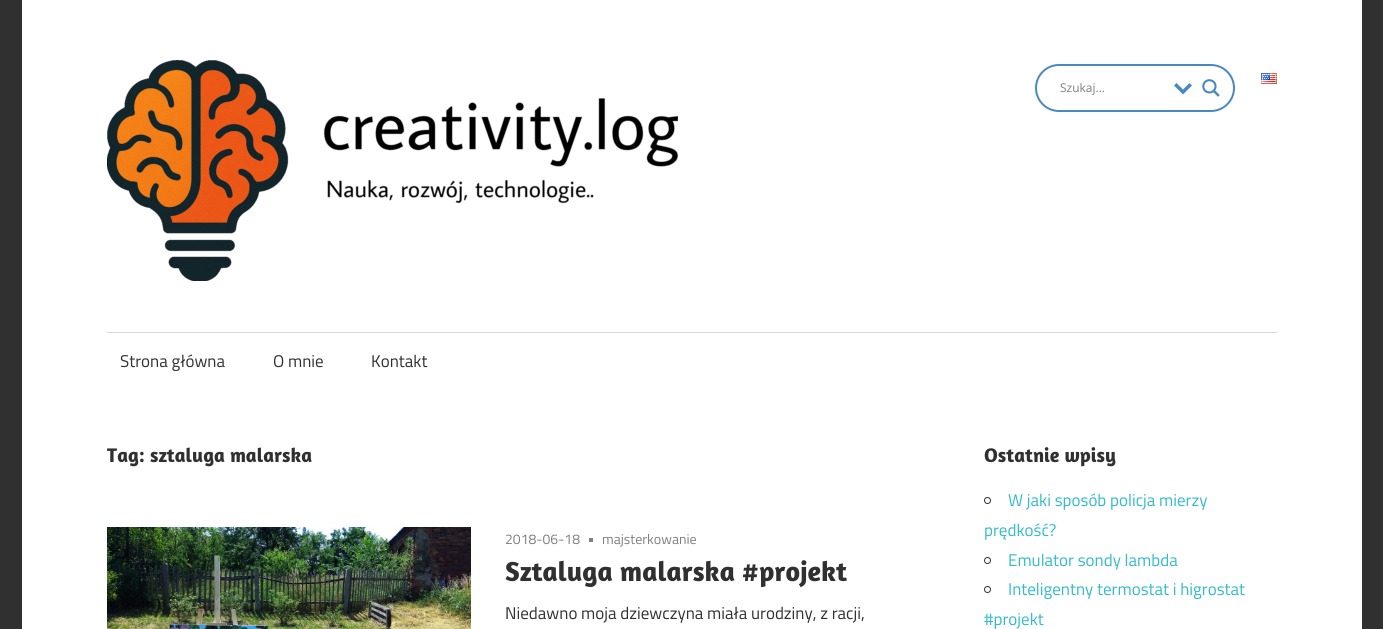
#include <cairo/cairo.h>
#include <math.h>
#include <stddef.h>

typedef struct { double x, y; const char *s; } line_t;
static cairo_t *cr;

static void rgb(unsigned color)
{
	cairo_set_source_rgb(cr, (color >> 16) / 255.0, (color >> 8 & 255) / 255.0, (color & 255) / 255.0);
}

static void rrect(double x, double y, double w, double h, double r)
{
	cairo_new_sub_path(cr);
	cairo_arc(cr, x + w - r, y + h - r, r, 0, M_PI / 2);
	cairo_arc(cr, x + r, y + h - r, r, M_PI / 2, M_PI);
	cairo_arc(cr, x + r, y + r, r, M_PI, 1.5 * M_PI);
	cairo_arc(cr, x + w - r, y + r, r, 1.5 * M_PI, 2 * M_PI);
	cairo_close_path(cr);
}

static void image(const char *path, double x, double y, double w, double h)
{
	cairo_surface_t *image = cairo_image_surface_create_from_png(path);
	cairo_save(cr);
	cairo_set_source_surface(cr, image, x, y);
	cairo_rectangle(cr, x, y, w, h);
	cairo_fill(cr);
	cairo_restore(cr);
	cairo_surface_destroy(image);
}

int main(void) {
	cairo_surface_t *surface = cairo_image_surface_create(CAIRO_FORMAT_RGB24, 1383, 629);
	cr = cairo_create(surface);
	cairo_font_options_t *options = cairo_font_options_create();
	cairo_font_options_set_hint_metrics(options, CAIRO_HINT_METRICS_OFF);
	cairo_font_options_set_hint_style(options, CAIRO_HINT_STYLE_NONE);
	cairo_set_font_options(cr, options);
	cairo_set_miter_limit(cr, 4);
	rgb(0x303030);
	cairo_paint(cr);
	rgb(0xffffff);
	cairo_rectangle(cr, 22, 0, 1340, 629);
	cairo_fill(cr);
	image("img/1.png", 107, 60, 571, 221);
	image("img/2.png", 1261, 73, 16, 11);
	rrect(1036, 65, 198, 46, 23);
	rgb(0x4a89bf);
	cairo_stroke(cr);
	cairo_new_path(cr);
	cairo_move_to(cr, 1189.5, 83);
	cairo_line_to(cr, 1192, 85.5);
	cairo_line_to(cr, 1183, 94.5);
	cairo_line_to(cr, 1174, 85.5);
	cairo_line_to(cr, 1176.5, 83);
	cairo_line_to(cr, 1183, 89.5);
	cairo_close_path(cr);
	cairo_fill(cr);
	image("img/3.png", 1202, 79, 18, 18);
	rgb(0xd9d9d9);
	cairo_rectangle(cr, 107, 332, 1170, 1);
	cairo_fill(cr);
	image("img/4.png", 107, 527, 364, 102);
	rgb(0x808080);
	cairo_rectangle(cr, 589, 538, 4, 4);
	cairo_fill(cr);
	cairo_arc(cr, 987.5, 500.5, 3, 0, 2 * M_PI);
	rgb(0x303030);
	cairo_set_line_width(cr, 1);
	cairo_stroke(cr);
	cairo_arc(cr, 987.5, 560.5, 3, 0, 2 * M_PI);
	cairo_stroke(cr);
	cairo_arc(cr, 987.5, 589.5, 3, 0, 2 * M_PI);
	cairo_stroke(cr);
	cairo_select_font_face(cr, "Open Sans", CAIRO_FONT_SLANT_NORMAL, CAIRO_FONT_WEIGHT_NORMAL);
	cairo_set_font_size(cr, 12);
	rgb(0x808080);
	cairo_move_to(cr, 1060, 92);
	cairo_show_text(cr, "Szukaj...");
	cairo_select_font_face(cr, "Titillium Web", CAIRO_FONT_SLANT_NORMAL, CAIRO_FONT_WEIGHT_NORMAL);
	cairo_set_font_size(cr, 17);
	rgb(0x303030);
	{
		static const line_t items[] = {
			{120, 367, "Strona główna"},
			{273, 367, "O mnie"},
			{371, 367, "Kontakt"},
		};
		for (size_t i = 0; i < sizeof items / sizeof *items; i++) {
			cairo_move_to(cr, items[i].x, items[i].y);
			cairo_show_text(cr, items[i].s);
		}
	}
	cairo_select_font_face(cr, "Amaranth", CAIRO_FONT_SLANT_NORMAL, CAIRO_FONT_WEIGHT_BOLD);
	cairo_set_font_size(cr, 20);
	cairo_move_to(cr, 107, 462);
	cairo_show_text(cr, "Tag: sztaluga malarska");
	cairo_select_font_face(cr, "Titillium Web", CAIRO_FONT_SLANT_NORMAL, CAIRO_FONT_WEIGHT_NORMAL);
	cairo_set_font_size(cr, 14);
	rgb(0x808080);
	cairo_move_to(cr, 505, 544);
	cairo_show_text(cr, "2018-06-18");
	cairo_move_to(cr, 602, 544);
	cairo_show_text(cr, "majsterkowanie");
	cairo_select_font_face(cr, "Amaranth", CAIRO_FONT_SLANT_NORMAL, CAIRO_FONT_WEIGHT_BOLD);
	cairo_set_font_size(cr, 28);
	rgb(0x303030);
	cairo_move_to(cr, 505, 581);
	cairo_show_text(cr, "Sztaluga malarska #projekt");
	cairo_select_font_face(cr, "Titillium Web", CAIRO_FONT_SLANT_NORMAL, CAIRO_FONT_WEIGHT_NORMAL);
	cairo_set_font_size(cr, 17);
	cairo_move_to(cr, 505, 619);
	cairo_show_text(cr, "Niedawno moja dziewczyna miała urodziny, z racji,");
	cairo_select_font_face(cr, "Amaranth", CAIRO_FONT_SLANT_NORMAL, CAIRO_FONT_WEIGHT_BOLD);
	cairo_set_font_size(cr, 20);
	cairo_move_to(cr, 984, 462);
	cairo_show_text(cr, "Ostatnie wpisy");
	cairo_select_font_face(cr, "Titillium Web", CAIRO_FONT_SLANT_NORMAL, CAIRO_FONT_WEIGHT_NORMAL);
	cairo_set_font_size(cr, 17);
	rgb(0x33bbcc);
	{
		static const line_t items[] = {
			{1008, 506, "W jaki sposób policja mierzy"},
			{984, 536, "prędkość?"},
			{1008, 566, "Emulator sondy lambda"},
			{1008, 595, "Inteligentny termostat i higrostat"},
			{984, 625, "#projekt"},
		};
		for (size_t i = 0; i < sizeof items / sizeof *items; i++) {
			cairo_move_to(cr, items[i].x, items[i].y);
			cairo_show_text(cr, items[i].s);
		}
	}
	cairo_surface_write_to_png(surface, "page.png");
	cairo_font_options_destroy(options);
	cairo_destroy(cr);
	cairo_surface_destroy(surface);
	return 0;
}
